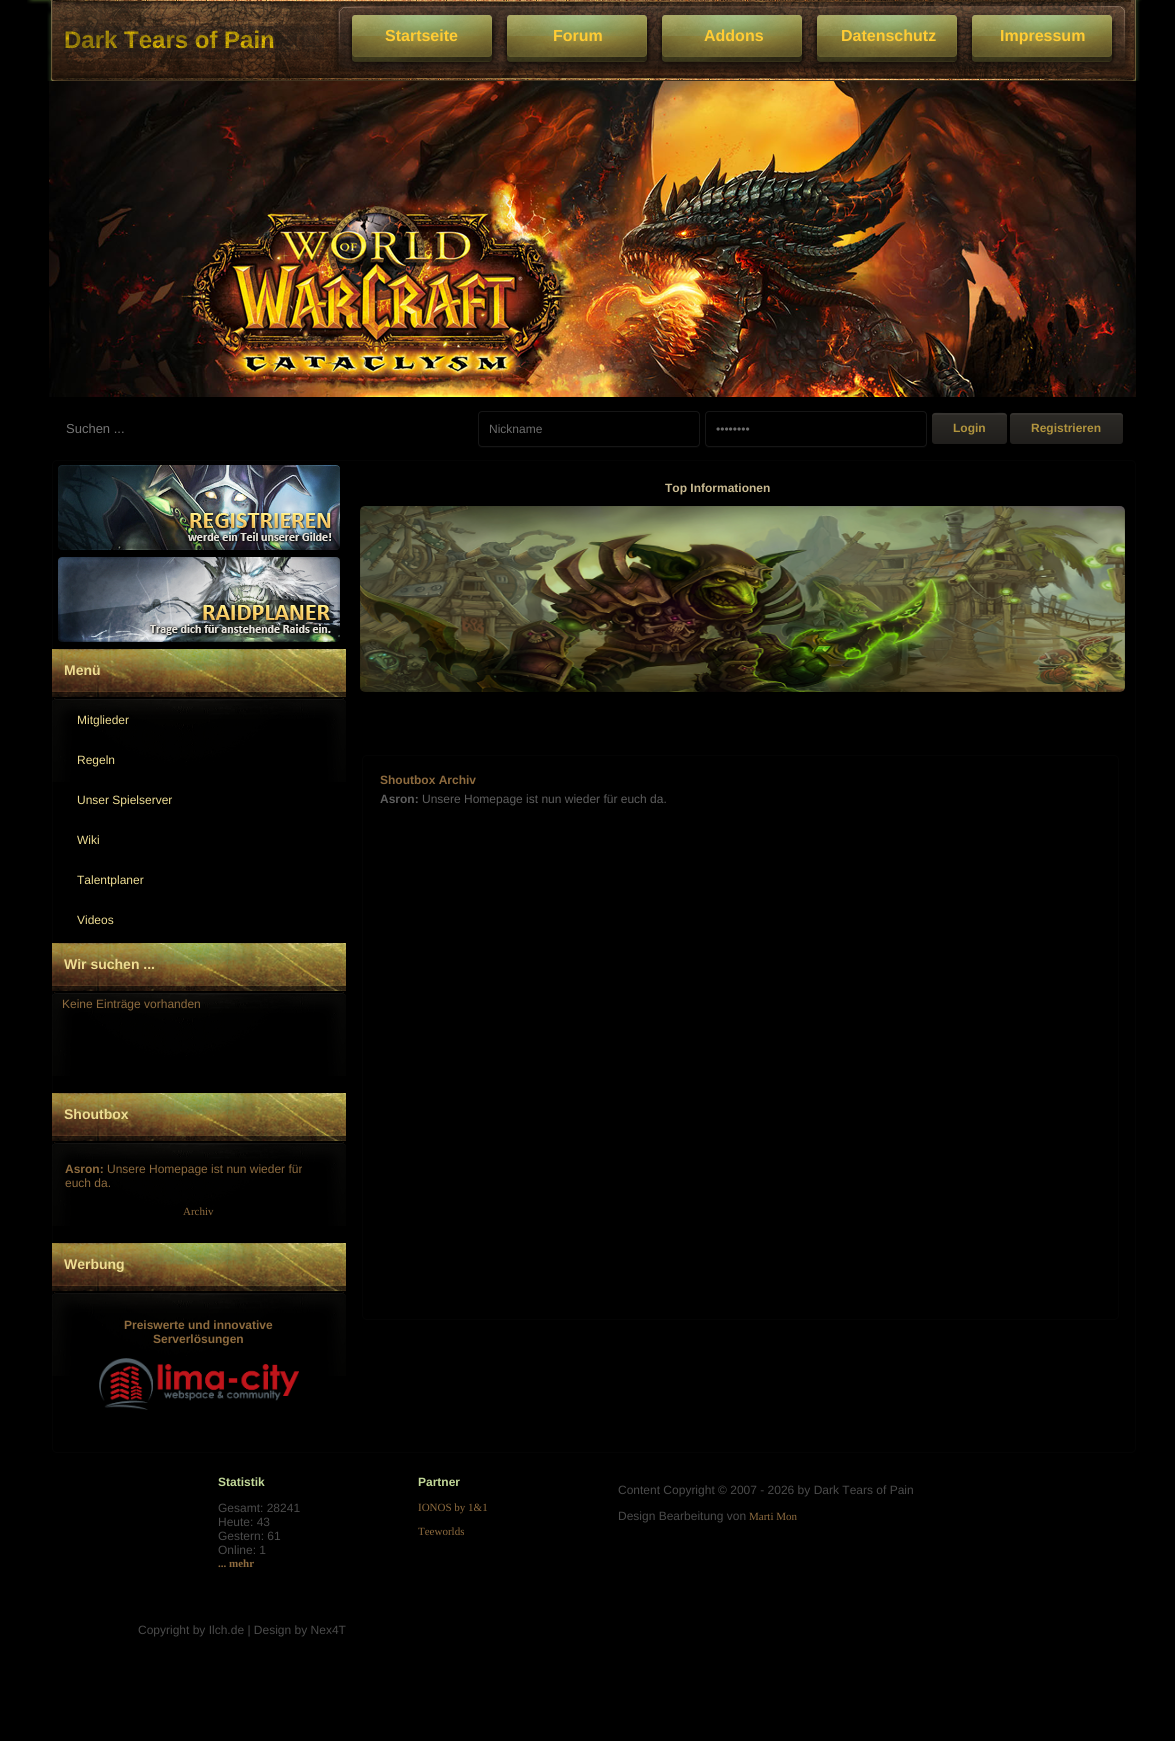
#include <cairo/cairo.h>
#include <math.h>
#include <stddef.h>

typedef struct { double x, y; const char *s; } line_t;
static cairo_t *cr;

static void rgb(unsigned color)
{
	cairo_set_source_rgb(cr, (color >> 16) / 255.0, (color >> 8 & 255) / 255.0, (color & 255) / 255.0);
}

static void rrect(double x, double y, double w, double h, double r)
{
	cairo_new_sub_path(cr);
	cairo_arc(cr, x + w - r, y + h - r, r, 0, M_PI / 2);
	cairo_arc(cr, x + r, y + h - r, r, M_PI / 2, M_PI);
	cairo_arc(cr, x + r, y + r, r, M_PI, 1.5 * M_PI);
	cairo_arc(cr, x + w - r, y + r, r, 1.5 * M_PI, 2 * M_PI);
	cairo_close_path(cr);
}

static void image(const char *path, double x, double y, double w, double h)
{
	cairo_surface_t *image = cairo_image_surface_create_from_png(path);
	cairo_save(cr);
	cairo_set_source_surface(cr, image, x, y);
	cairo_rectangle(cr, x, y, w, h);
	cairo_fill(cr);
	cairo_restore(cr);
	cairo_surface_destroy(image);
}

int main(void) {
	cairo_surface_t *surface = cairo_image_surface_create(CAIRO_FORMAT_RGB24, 1175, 1741);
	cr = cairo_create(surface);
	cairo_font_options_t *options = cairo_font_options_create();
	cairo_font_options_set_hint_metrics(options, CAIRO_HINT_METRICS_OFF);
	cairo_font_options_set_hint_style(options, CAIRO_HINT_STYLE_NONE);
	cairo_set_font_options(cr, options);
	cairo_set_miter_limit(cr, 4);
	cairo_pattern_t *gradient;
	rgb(0x000000);
	cairo_paint(cr);
	image("img/1.png", 27, 0, 1115, 81);
	image("img/3.png", 348, 15, 148, 51);
	image("img/4.png", 503, 15, 148, 51);
	image("img/5.png", 658, 15, 148, 51);
	image("img/6.png", 813, 15, 148, 51);
	image("img/7.png", 968, 15, 148, 51);
	image("img/8.png", 49, 81, 1087, 316);
	rgb(0x050505);
	cairo_new_path(cr);
	cairo_move_to(cr, 478, 443);
	cairo_curve_to(cr, 478, 446, 479, 448, 482, 448);
	cairo_line_to(cr, 696, 448);
	cairo_curve_to(cr, 699, 448, 700, 446, 700, 443);
	cairo_curve_to(cr, 700, 445, 698, 447, 696, 447);
	cairo_line_to(cr, 482, 447);
	cairo_curve_to(cr, 480, 447, 478, 445, 478, 443);
	cairo_close_path(cr);
	cairo_fill(cr);
	rrect(478.5, 411.5, 221, 35, 3.5);
	rgb(0x161616);
	cairo_set_line_width(cr, 1);
	cairo_stroke(cr);
	rgb(0x050505);
	cairo_new_path(cr);
	cairo_move_to(cr, 705, 443);
	cairo_curve_to(cr, 705, 446, 706, 448, 709, 448);
	cairo_line_to(cr, 923, 448);
	cairo_curve_to(cr, 926, 448, 927, 446, 927, 443);
	cairo_curve_to(cr, 927, 445, 925, 447, 923, 447);
	cairo_line_to(cr, 709, 447);
	cairo_curve_to(cr, 707, 447, 705, 445, 705, 443);
	cairo_close_path(cr);
	cairo_fill(cr);
	rrect(705.5, 411.5, 221, 35, 3.5);
	rgb(0x161616);
	cairo_stroke(cr);
	gradient = cairo_pattern_create_linear(970, 413, 970, 444);
	cairo_pattern_add_color_stop_rgba(gradient, 0, 0.173, 0.165, 0.149, 1);
	cairo_pattern_add_color_stop_rgba(gradient, 1, 0.125, 0.118, 0.11, 1);
	cairo_set_source(cr, gradient);
	cairo_pattern_destroy(gradient);
	rrect(932, 413, 75, 31, 3);
	cairo_fill(cr);
	cairo_set_source_rgba(cr, 1, 1, 1, 0.05);
	cairo_new_path(cr);
	cairo_move_to(cr, 935, 415);
	cairo_line_to(cr, 1004, 415);
	cairo_curve_to(cr, 1006, 415, 1007, 416, 1007, 418);
	cairo_curve_to(cr, 1007, 410, 1000, 413, 992, 413);
	cairo_line_to(cr, 946, 413);
	cairo_curve_to(cr, 939, 413, 932, 410, 932, 418);
	cairo_curve_to(cr, 932, 416, 933, 415, 935, 415);
	cairo_close_path(cr);
	cairo_fill(cr);
	gradient = cairo_pattern_create_linear(1067, 413, 1067, 444);
	cairo_pattern_add_color_stop_rgba(gradient, 0, 0.173, 0.165, 0.149, 1);
	cairo_pattern_add_color_stop_rgba(gradient, 1, 0.125, 0.118, 0.11, 1);
	cairo_set_source(cr, gradient);
	cairo_pattern_destroy(gradient);
	rrect(1010, 413, 113, 31, 3);
	cairo_fill(cr);
	cairo_set_source_rgba(cr, 1, 1, 1, 0.05);
	cairo_new_path(cr);
	cairo_move_to(cr, 1013, 415);
	cairo_line_to(cr, 1120, 415);
	cairo_curve_to(cr, 1122, 415, 1123, 416, 1123, 418);
	cairo_line_to(cr, 1123, 416);
	cairo_curve_to(cr, 1123, 414, 1122, 413, 1120, 413);
	cairo_line_to(cr, 1013, 413);
	cairo_curve_to(cr, 1011, 413, 1010, 414, 1010, 416);
	cairo_line_to(cr, 1010, 418);
	cairo_curve_to(cr, 1010, 416, 1011, 415, 1013, 415);
	cairo_close_path(cr);
	cairo_fill(cr);
	rrect(52.5, 460.5, 1083, 992, 4.5);
	rgb(0x040404);
	cairo_stroke(cr);
	image("img/9.png", 360, 506, 765, 186);
	image("img/10.png", 58, 465, 282, 85);
	image("img/11.png", 58, 557, 282, 85);
	image("img/12.png", 52, 649, 294, 133);
	image("img/12.png", 52, 943, 294, 133);
	image("img/12.png", 52, 1093, 294, 133);
	image("img/13.png", 52, 1243, 294, 133);
	image("img/14.png", 99, 1358, 200, 52);
	rrect(362.5, 755.5, 756, 564, 4.5);
	cairo_stroke(cr);
	cairo_select_font_face(cr, "Liberation Sans", CAIRO_FONT_SLANT_NORMAL, CAIRO_FONT_WEIGHT_BOLD);
	cairo_set_font_size(cr, 24);
	rgb(0xecc200);
	cairo_move_to(cr, 64, 48);
	cairo_show_text(cr, "Dark Tears of Pain");
	image("img/2.png", 64, 26, 260, 26);
	cairo_set_font_size(cr, 16);
	rgb(0xffcc33);
	{
		static const line_t items[] = {
			{385, 41, "Startseite"},
			{553, 41, "Forum"},
			{704, 41, "Addons"},
			{841, 41, "Datenschutz"},
			{1000, 41, "Impressum"},
		};
		for (size_t i = 0; i < sizeof items / sizeof *items; i++) {
			cairo_move_to(cr, items[i].x, items[i].y);
			cairo_show_text(cr, items[i].s);
		}
	}
	cairo_select_font_face(cr, "Liberation Sans", CAIRO_FONT_SLANT_NORMAL, CAIRO_FONT_WEIGHT_NORMAL);
	cairo_set_font_size(cr, 13);
	rgb(0x757575);
	cairo_move_to(cr, 66, 433);
	cairo_show_text(cr, "Suchen ...");
	cairo_set_font_size(cr, 12);
	rgb(0x6c6c6c);
	cairo_move_to(cr, 489, 433);
	cairo_show_text(cr, "Nickname");
	cairo_move_to(cr, 716, 433);
	cairo_show_text(cr, "••••••••");
	cairo_select_font_face(cr, "Liberation Sans", CAIRO_FONT_SLANT_NORMAL, CAIRO_FONT_WEIGHT_BOLD);
	rgb(0xb1943e);
	cairo_move_to(cr, 953, 432);
	cairo_show_text(cr, "Login");
	cairo_move_to(cr, 1031, 432);
	cairo_show_text(cr, "Registrieren");
	rgb(0xc9ba91);
	cairo_move_to(cr, 665, 492);
	cairo_show_text(cr, "Top Informationen");
	cairo_set_font_size(cr, 14);
	rgb(0xeedd93);
	cairo_move_to(cr, 64, 675);
	cairo_show_text(cr, "Menü");
	cairo_select_font_face(cr, "Liberation Sans", CAIRO_FONT_SLANT_NORMAL, CAIRO_FONT_WEIGHT_NORMAL);
	cairo_set_font_size(cr, 12);
	{
		static const line_t items[] = {
			{77, 724, "Mitglieder"},
			{77, 764, "Regeln"},
			{77, 804, "Unser Spielserver"},
			{77, 844, "Wiki"},
			{77, 884, "Talentplaner"},
			{77, 924, "Videos"},
		};
		for (size_t i = 0; i < sizeof items / sizeof *items; i++) {
			cairo_move_to(cr, items[i].x, items[i].y);
			cairo_show_text(cr, items[i].s);
		}
	}
	cairo_select_font_face(cr, "Liberation Sans", CAIRO_FONT_SLANT_NORMAL, CAIRO_FONT_WEIGHT_BOLD);
	cairo_set_font_size(cr, 14);
	cairo_move_to(cr, 64, 969);
	cairo_show_text(cr, "Wir suchen ...");
	cairo_select_font_face(cr, "Liberation Sans", CAIRO_FONT_SLANT_NORMAL, CAIRO_FONT_WEIGHT_NORMAL);
	cairo_set_font_size(cr, 12);
	rgb(0x8e6b3e);
	cairo_move_to(cr, 62, 1008);
	cairo_show_text(cr, "Keine Einträge vorhanden");
	cairo_select_font_face(cr, "Liberation Sans", CAIRO_FONT_SLANT_NORMAL, CAIRO_FONT_WEIGHT_BOLD);
	cairo_set_font_size(cr, 14);
	rgb(0xeedd93);
	cairo_move_to(cr, 64, 1119);
	cairo_show_text(cr, "Shoutbox");
	cairo_set_font_size(cr, 12);
	rgb(0x8e6b3e);
	cairo_move_to(cr, 65, 1173);
	cairo_show_text(cr, "Asron:");
	cairo_select_font_face(cr, "Liberation Sans", CAIRO_FONT_SLANT_NORMAL, CAIRO_FONT_WEIGHT_NORMAL);
	cairo_move_to(cr, 107, 1173);
	cairo_show_text(cr, "Unsere Homepage ist nun wieder für");
	cairo_move_to(cr, 65, 1187);
	cairo_show_text(cr, "euch da.");
	cairo_select_font_face(cr, "Liberation Serif", CAIRO_FONT_SLANT_NORMAL, CAIRO_FONT_WEIGHT_NORMAL);
	cairo_set_font_size(cr, 11);
	cairo_move_to(cr, 183, 1215);
	cairo_show_text(cr, "Archiv");
	cairo_select_font_face(cr, "Liberation Sans", CAIRO_FONT_SLANT_NORMAL, CAIRO_FONT_WEIGHT_BOLD);
	cairo_set_font_size(cr, 14);
	rgb(0xeedd93);
	cairo_move_to(cr, 64, 1269);
	cairo_show_text(cr, "Werbung");
	cairo_set_font_size(cr, 12);
	rgb(0x8e6b3e);
	{
		static const line_t items[] = {
			{124, 1329, "Preiswerte und innovative"},
			{153, 1343, "Serverlösungen"},
			{380, 784, "Shoutbox Archiv"},
		};
		for (size_t i = 0; i < sizeof items / sizeof *items; i++) {
			cairo_move_to(cr, items[i].x, items[i].y);
			cairo_show_text(cr, items[i].s);
		}
	}
	rgb(0x5e5e5e);
	cairo_move_to(cr, 380, 803);
	cairo_show_text(cr, "Asron:");
	cairo_select_font_face(cr, "Liberation Sans", CAIRO_FONT_SLANT_NORMAL, CAIRO_FONT_WEIGHT_NORMAL);
	cairo_move_to(cr, 422, 803);
	cairo_show_text(cr, "Unsere Homepage ist nun wieder für euch da.");
	cairo_select_font_face(cr, "Liberation Sans", CAIRO_FONT_SLANT_NORMAL, CAIRO_FONT_WEIGHT_BOLD);
	rgb(0xc2d899);
	cairo_move_to(cr, 218, 1486);
	cairo_show_text(cr, "Statistik");
	cairo_select_font_face(cr, "Liberation Sans", CAIRO_FONT_SLANT_NORMAL, CAIRO_FONT_WEIGHT_NORMAL);
	rgb(0x4b4b4b);
	{
		static const line_t items[] = {
			{218, 1512, "Gesamt: 28241"},
			{218, 1526, "Heute: 43"},
			{218, 1540, "Gestern: 61"},
			{218, 1554, "Online: 1"},
		};
		for (size_t i = 0; i < sizeof items / sizeof *items; i++) {
			cairo_move_to(cr, items[i].x, items[i].y);
			cairo_show_text(cr, items[i].s);
		}
	}
	cairo_select_font_face(cr, "Liberation Serif", CAIRO_FONT_SLANT_NORMAL, CAIRO_FONT_WEIGHT_BOLD);
	cairo_set_font_size(cr, 11);
	rgb(0x8e6b3e);
	cairo_move_to(cr, 218, 1567);
	cairo_show_text(cr, "... mehr");
	cairo_select_font_face(cr, "Liberation Sans", CAIRO_FONT_SLANT_NORMAL, CAIRO_FONT_WEIGHT_BOLD);
	cairo_set_font_size(cr, 12);
	rgb(0xc2d899);
	cairo_move_to(cr, 418, 1486);
	cairo_show_text(cr, "Partner");
	cairo_select_font_face(cr, "Liberation Serif", CAIRO_FONT_SLANT_NORMAL, CAIRO_FONT_WEIGHT_NORMAL);
	cairo_set_font_size(cr, 11);
	rgb(0x8e6b3e);
	cairo_move_to(cr, 418, 1511);
	cairo_show_text(cr, "IONOS by 1&1");
	cairo_move_to(cr, 418, 1535);
	cairo_show_text(cr, "Teeworlds");
	cairo_select_font_face(cr, "Liberation Sans", CAIRO_FONT_SLANT_NORMAL, CAIRO_FONT_WEIGHT_NORMAL);
	cairo_set_font_size(cr, 12);
	rgb(0x4b4b4b);
	cairo_move_to(cr, 618, 1494);
	cairo_show_text(cr, "Content Copyright © 2007 - 2026 by Dark Tears of Pain");
	cairo_move_to(cr, 618, 1520);
	cairo_show_text(cr, "Design Bearbeitung von");
	cairo_select_font_face(cr, "Liberation Serif", CAIRO_FONT_SLANT_NORMAL, CAIRO_FONT_WEIGHT_NORMAL);
	cairo_set_font_size(cr, 11);
	rgb(0x8e6b3e);
	cairo_move_to(cr, 749, 1520);
	cairo_show_text(cr, "Marti Mon");
	cairo_select_font_face(cr, "Liberation Sans", CAIRO_FONT_SLANT_NORMAL, CAIRO_FONT_WEIGHT_NORMAL);
	cairo_set_font_size(cr, 12);
	rgb(0x4b4b4b);
	cairo_move_to(cr, 138, 1634);
	cairo_show_text(cr, "Copyright by Ilch.de | Design by Nex4T");
	cairo_surface_write_to_png(surface, "page.png");
	cairo_font_options_destroy(options);
	cairo_destroy(cr);
	cairo_surface_destroy(surface);
	return 0;
}
